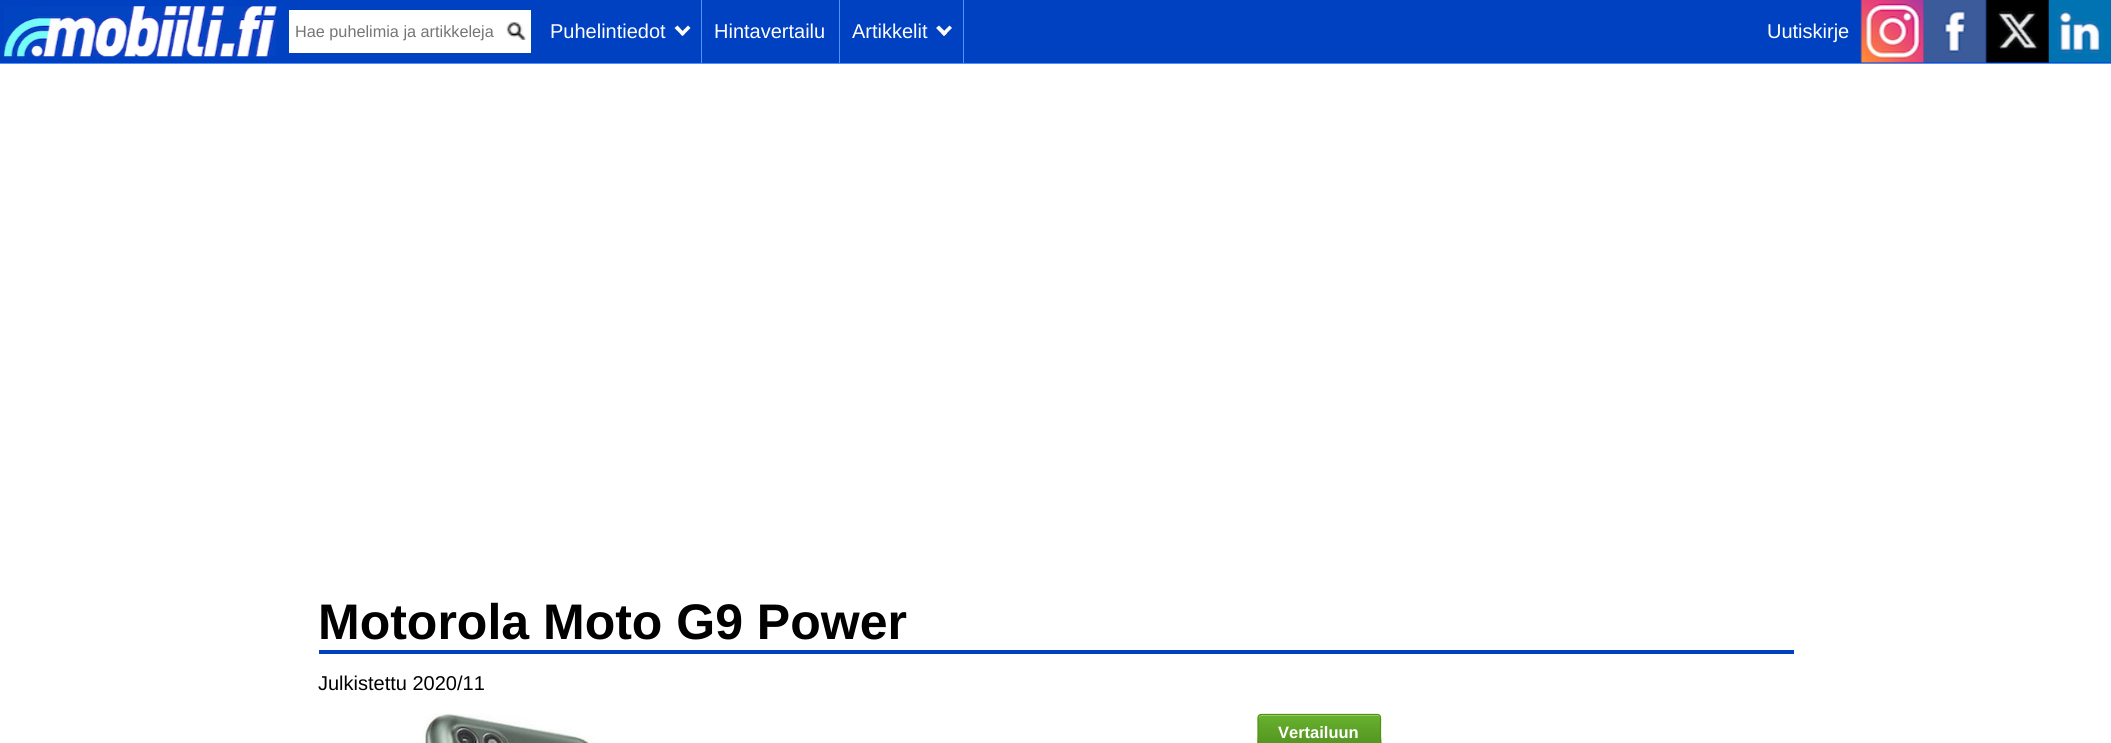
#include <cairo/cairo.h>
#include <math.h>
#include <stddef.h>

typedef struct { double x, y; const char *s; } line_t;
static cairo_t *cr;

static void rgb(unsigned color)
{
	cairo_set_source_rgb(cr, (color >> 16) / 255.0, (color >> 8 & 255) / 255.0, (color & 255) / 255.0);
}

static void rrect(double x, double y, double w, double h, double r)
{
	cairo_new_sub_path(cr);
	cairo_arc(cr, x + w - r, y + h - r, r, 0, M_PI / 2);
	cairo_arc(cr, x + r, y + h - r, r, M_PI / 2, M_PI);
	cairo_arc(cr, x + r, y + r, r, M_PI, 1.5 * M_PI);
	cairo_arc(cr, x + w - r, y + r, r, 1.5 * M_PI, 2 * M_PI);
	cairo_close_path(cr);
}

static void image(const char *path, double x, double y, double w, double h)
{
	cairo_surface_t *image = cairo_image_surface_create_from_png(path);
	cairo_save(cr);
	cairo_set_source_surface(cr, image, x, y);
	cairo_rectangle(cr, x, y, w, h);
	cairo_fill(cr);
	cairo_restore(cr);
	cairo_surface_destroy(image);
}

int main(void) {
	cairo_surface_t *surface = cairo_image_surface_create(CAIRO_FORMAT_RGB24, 2111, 743);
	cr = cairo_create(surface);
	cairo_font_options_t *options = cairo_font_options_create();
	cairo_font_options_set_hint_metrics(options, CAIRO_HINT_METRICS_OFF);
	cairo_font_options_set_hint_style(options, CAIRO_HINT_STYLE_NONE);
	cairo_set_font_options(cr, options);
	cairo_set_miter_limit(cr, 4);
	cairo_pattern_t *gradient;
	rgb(0xffffff);
	cairo_paint(cr);
	rgb(0x0041c2);
	cairo_rectangle(cr, 0, 0, 2111, 63);
	cairo_fill(cr);
	rgb(0x5091ff);
	cairo_rectangle(cr, 0, 63, 2111, 1);
	cairo_fill(cr);
	image("img/1.png", 4, 6, 273, 51);
	rgb(0xffffff);
	cairo_rectangle(cr, 289, 10, 242, 43);
	cairo_fill(cr);
	image("img/2.png", 506, 22, 20, 18);
	rgb(0x5091ff);
	cairo_rectangle(cr, 701, 0, 1, 63);
	cairo_fill(cr);
	rgb(0xffffff);
	cairo_new_path(cr);
	cairo_move_to(cr, 688, 25.5);
	cairo_line_to(cr, 690.5, 28);
	cairo_line_to(cr, 682.5, 36);
	cairo_line_to(cr, 680, 33.5);
	cairo_close_path(cr);
	cairo_fill(cr);
	cairo_new_path(cr);
	cairo_move_to(cr, 677.5, 25.5);
	cairo_line_to(cr, 685, 33.5);
	cairo_line_to(cr, 682.5, 36);
	cairo_line_to(cr, 674.5, 28);
	cairo_close_path(cr);
	cairo_fill(cr);
	rgb(0x5091ff);
	cairo_rectangle(cr, 839, 0, 1, 63);
	cairo_fill(cr);
	cairo_rectangle(cr, 963, 0, 1, 63);
	cairo_fill(cr);
	rgb(0xffffff);
	cairo_new_path(cr);
	cairo_move_to(cr, 949.5, 25.5);
	cairo_line_to(cr, 952, 28);
	cairo_line_to(cr, 944, 36);
	cairo_line_to(cr, 941.5, 33.5);
	cairo_close_path(cr);
	cairo_fill(cr);
	cairo_new_path(cr);
	cairo_move_to(cr, 939, 25.5);
	cairo_line_to(cr, 947, 33.5);
	cairo_line_to(cr, 944, 36);
	cairo_line_to(cr, 936, 28);
	cairo_close_path(cr);
	cairo_fill(cr);
	image("img/3.png", 1860, 0, 64, 63);
	image("img/4.png", 1923, 0, 64, 63);
	image("img/5.png", 1985, 0, 64, 63);
	image("img/6.png", 2048, 0, 63, 63);
	rgb(0x0041c2);
	cairo_rectangle(cr, 319, 650, 1475, 4);
	cairo_fill(cr);
	image("img/7.png", 423, 713, 173, 30);
	cairo_save(cr);
	rrect(1258, 714, 123, 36, 4);
	cairo_clip(cr);
	gradient = cairo_pattern_create_linear(1319, 715, 1319, 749);
	cairo_pattern_add_color_stop_rgba(gradient, 0, 0.408, 0.694, 0.184, 1);
	cairo_pattern_add_color_stop_rgba(gradient, 1, 0.314, 0.569, 0.118, 1);
	cairo_set_source(cr, gradient);
	cairo_pattern_destroy(gradient);
	cairo_rectangle(cr, 1258, 715, 123, 28);
	cairo_fill(cr);
	cairo_restore(cr);
	rgb(0x9fd574);
	cairo_new_path(cr);
	cairo_move_to(cr, 1261, 716);
	cairo_line_to(cr, 1378, 716);
	cairo_curve_to(cr, 1379, 716, 1380, 717, 1380, 719);
	cairo_line_to(cr, 1380, 718);
	cairo_curve_to(cr, 1380, 716, 1379, 715, 1378, 715);
	cairo_line_to(cr, 1262, 715);
	cairo_curve_to(cr, 1260, 715, 1259, 716, 1259, 718);
	cairo_line_to(cr, 1259, 719);
	cairo_curve_to(cr, 1259, 717, 1260, 716, 1261, 716);
	cairo_close_path(cr);
	cairo_fill(cr);
	cairo_new_path(cr);
	cairo_move_to(cr, 1259, 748.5);
	cairo_curve_to(cr, 1257, 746.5, 1258, 739, 1258, 736.5);
	cairo_line_to(cr, 1258, 722.5);
	cairo_curve_to(cr, 1258, 720, 1257, 714.5, 1261, 714.5);
	cairo_line_to(cr, 1377.5, 714.5);
	cairo_curve_to(cr, 1381.5, 714.5, 1380.5, 720, 1380.5, 722.5);
	cairo_line_to(cr, 1380.5, 736.5);
	cairo_curve_to(cr, 1380.5, 739, 1382, 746.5, 1379.5, 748.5);
	rgb(0x509111);
	cairo_set_line_width(cr, 1.2);
	cairo_stroke(cr);
	cairo_select_font_face(cr, "Liberation Sans", CAIRO_FONT_SLANT_NORMAL, CAIRO_FONT_WEIGHT_NORMAL);
	cairo_set_font_size(cr, 16.25);
	rgb(0x757575);
	cairo_move_to(cr, 295, 37);
	cairo_show_text(cr, "Hae puhelimia ja artikkeleja");
	cairo_set_font_size(cr, 20);
	rgb(0xffffff);
	{
		static const line_t items[] = {
			{550, 38, "Puhelintiedot"},
			{714, 38, "Hintavertailu"},
			{852, 38, "Artikkelit"},
			{1767, 38, "Uutiskirje"},
		};
		for (size_t i = 0; i < sizeof items / sizeof *items; i++) {
			cairo_move_to(cr, items[i].x, items[i].y);
			cairo_show_text(cr, items[i].s);
		}
	}
	cairo_select_font_face(cr, "Liberation Sans", CAIRO_FONT_SLANT_NORMAL, CAIRO_FONT_WEIGHT_BOLD);
	cairo_set_font_size(cr, 50);
	rgb(0x000000);
	cairo_move_to(cr, 318, 639);
	cairo_show_text(cr, "Motorola Moto G9 Power");
	cairo_select_font_face(cr, "Liberation Sans", CAIRO_FONT_SLANT_NORMAL, CAIRO_FONT_WEIGHT_NORMAL);
	cairo_set_font_size(cr, 20);
	cairo_move_to(cr, 318, 690);
	cairo_show_text(cr, "Julkistettu 2020/11");
	cairo_select_font_face(cr, "Liberation Sans", CAIRO_FONT_SLANT_NORMAL, CAIRO_FONT_WEIGHT_BOLD);
	cairo_set_font_size(cr, 16.5);
	rgb(0xffffff);
	cairo_move_to(cr, 1278, 738);
	cairo_show_text(cr, "Vertailuun");
	cairo_surface_write_to_png(surface, "page.png");
	cairo_font_options_destroy(options);
	cairo_destroy(cr);
	cairo_surface_destroy(surface);
	return 0;
}
